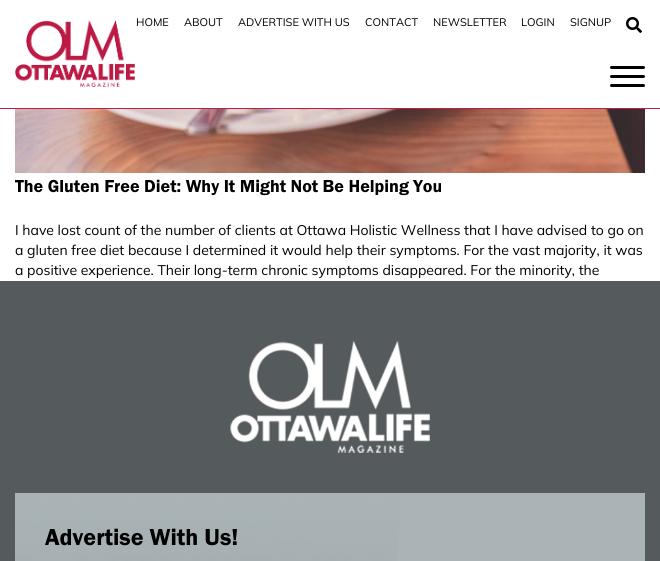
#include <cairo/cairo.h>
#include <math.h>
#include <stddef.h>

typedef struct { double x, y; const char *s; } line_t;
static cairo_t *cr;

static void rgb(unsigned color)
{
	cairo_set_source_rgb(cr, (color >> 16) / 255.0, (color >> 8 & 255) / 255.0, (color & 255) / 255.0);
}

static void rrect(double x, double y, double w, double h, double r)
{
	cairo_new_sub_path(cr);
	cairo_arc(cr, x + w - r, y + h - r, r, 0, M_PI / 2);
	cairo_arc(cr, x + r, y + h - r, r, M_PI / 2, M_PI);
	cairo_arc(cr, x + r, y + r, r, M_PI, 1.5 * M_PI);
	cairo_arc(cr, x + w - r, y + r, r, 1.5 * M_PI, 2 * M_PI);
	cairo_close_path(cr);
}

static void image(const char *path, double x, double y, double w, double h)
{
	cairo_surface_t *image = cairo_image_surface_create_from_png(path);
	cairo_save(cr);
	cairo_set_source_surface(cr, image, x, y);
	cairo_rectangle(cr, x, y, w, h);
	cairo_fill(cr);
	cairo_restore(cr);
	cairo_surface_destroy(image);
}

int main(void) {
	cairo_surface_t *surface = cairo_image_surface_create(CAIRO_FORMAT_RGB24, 660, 561);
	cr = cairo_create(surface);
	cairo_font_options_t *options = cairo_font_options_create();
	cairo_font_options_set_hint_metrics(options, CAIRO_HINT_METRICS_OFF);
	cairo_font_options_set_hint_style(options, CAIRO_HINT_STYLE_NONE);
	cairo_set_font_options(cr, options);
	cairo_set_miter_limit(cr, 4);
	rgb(0xffffff);
	cairo_paint(cr);
	image("img/1.png", 15, 20, 120, 67);
	image("img/2.png", 626, 17, 16, 16);
	rgb(0xba1f48);
	cairo_rectangle(cr, 0, 108, 660, 1);
	cairo_fill(cr);
	rgb(0x000000);
	rrect(610, 66, 35, 3, 1.5);
	cairo_fill(cr);
	rrect(610, 75, 35, 3, 1.5);
	cairo_fill(cr);
	rrect(610, 84, 35, 3, 1.5);
	cairo_fill(cr);
	image("img/3.png", 15, 109, 630, 64);
	rgb(0x555a5d);
	cairo_rectangle(cr, 0, 281, 660, 280);
	cairo_fill(cr);
	image("img/4.png", 230, 341, 200, 112);
	image("img/5.png", 15, 493, 630, 68);
	cairo_select_font_face(cr, "Mulish", CAIRO_FONT_SLANT_NORMAL, CAIRO_FONT_WEIGHT_NORMAL);
	cairo_set_font_size(cr, 11);
	rgb(0x000000);
	{
		static const line_t items[] = {
			{136, 26, "HOME"},
			{184, 26, "ABOUT"},
			{238, 26, "ADVERTISE WITH US"},
			{365, 26, "CONTACT"},
			{433, 26, "NEWSLETTER"},
			{521, 26, "LOGIN"},
			{570, 26, "SIGNUP"},
		};
		for (size_t i = 0; i < sizeof items / sizeof *items; i++) {
			cairo_move_to(cr, items[i].x, items[i].y);
			cairo_show_text(cr, items[i].s);
		}
	}
	cairo_select_font_face(cr, "Franklin Gothic", CAIRO_FONT_SLANT_NORMAL, CAIRO_FONT_WEIGHT_NORMAL);
	cairo_set_font_size(cr, 18);
	cairo_move_to(cr, 15, 192);
	cairo_show_text(cr, "The Gluten Free Diet: Why It Might Not Be Helping You");
	cairo_select_font_face(cr, "Mulish", CAIRO_FONT_SLANT_NORMAL, CAIRO_FONT_WEIGHT_NORMAL);
	cairo_set_font_size(cr, 14);
	{
		static const line_t items[] = {
			{15, 235, "I have lost count of the number of clients at Ottawa Holistic Wellness that I have advised to go on"},
			{15, 255, "a gluten free diet because I determined it would help their symptoms. For the vast majority, it was"},
			{15, 275, "a positive experience. Their long-term chronic symptoms disappeared. For the minority, the"},
		};
		for (size_t i = 0; i < sizeof items / sizeof *items; i++) {
			cairo_move_to(cr, items[i].x, items[i].y);
			cairo_show_text(cr, items[i].s);
		}
	}
	cairo_select_font_face(cr, "Franklin Gothic", CAIRO_FONT_SLANT_NORMAL, CAIRO_FONT_WEIGHT_NORMAL);
	cairo_set_font_size(cr, 24);
	cairo_move_to(cr, 45, 545);
	cairo_show_text(cr, "Advertise With Us!");
	cairo_surface_write_to_png(surface, "page.png");
	cairo_font_options_destroy(options);
	cairo_destroy(cr);
	cairo_surface_destroy(surface);
	return 0;
}
